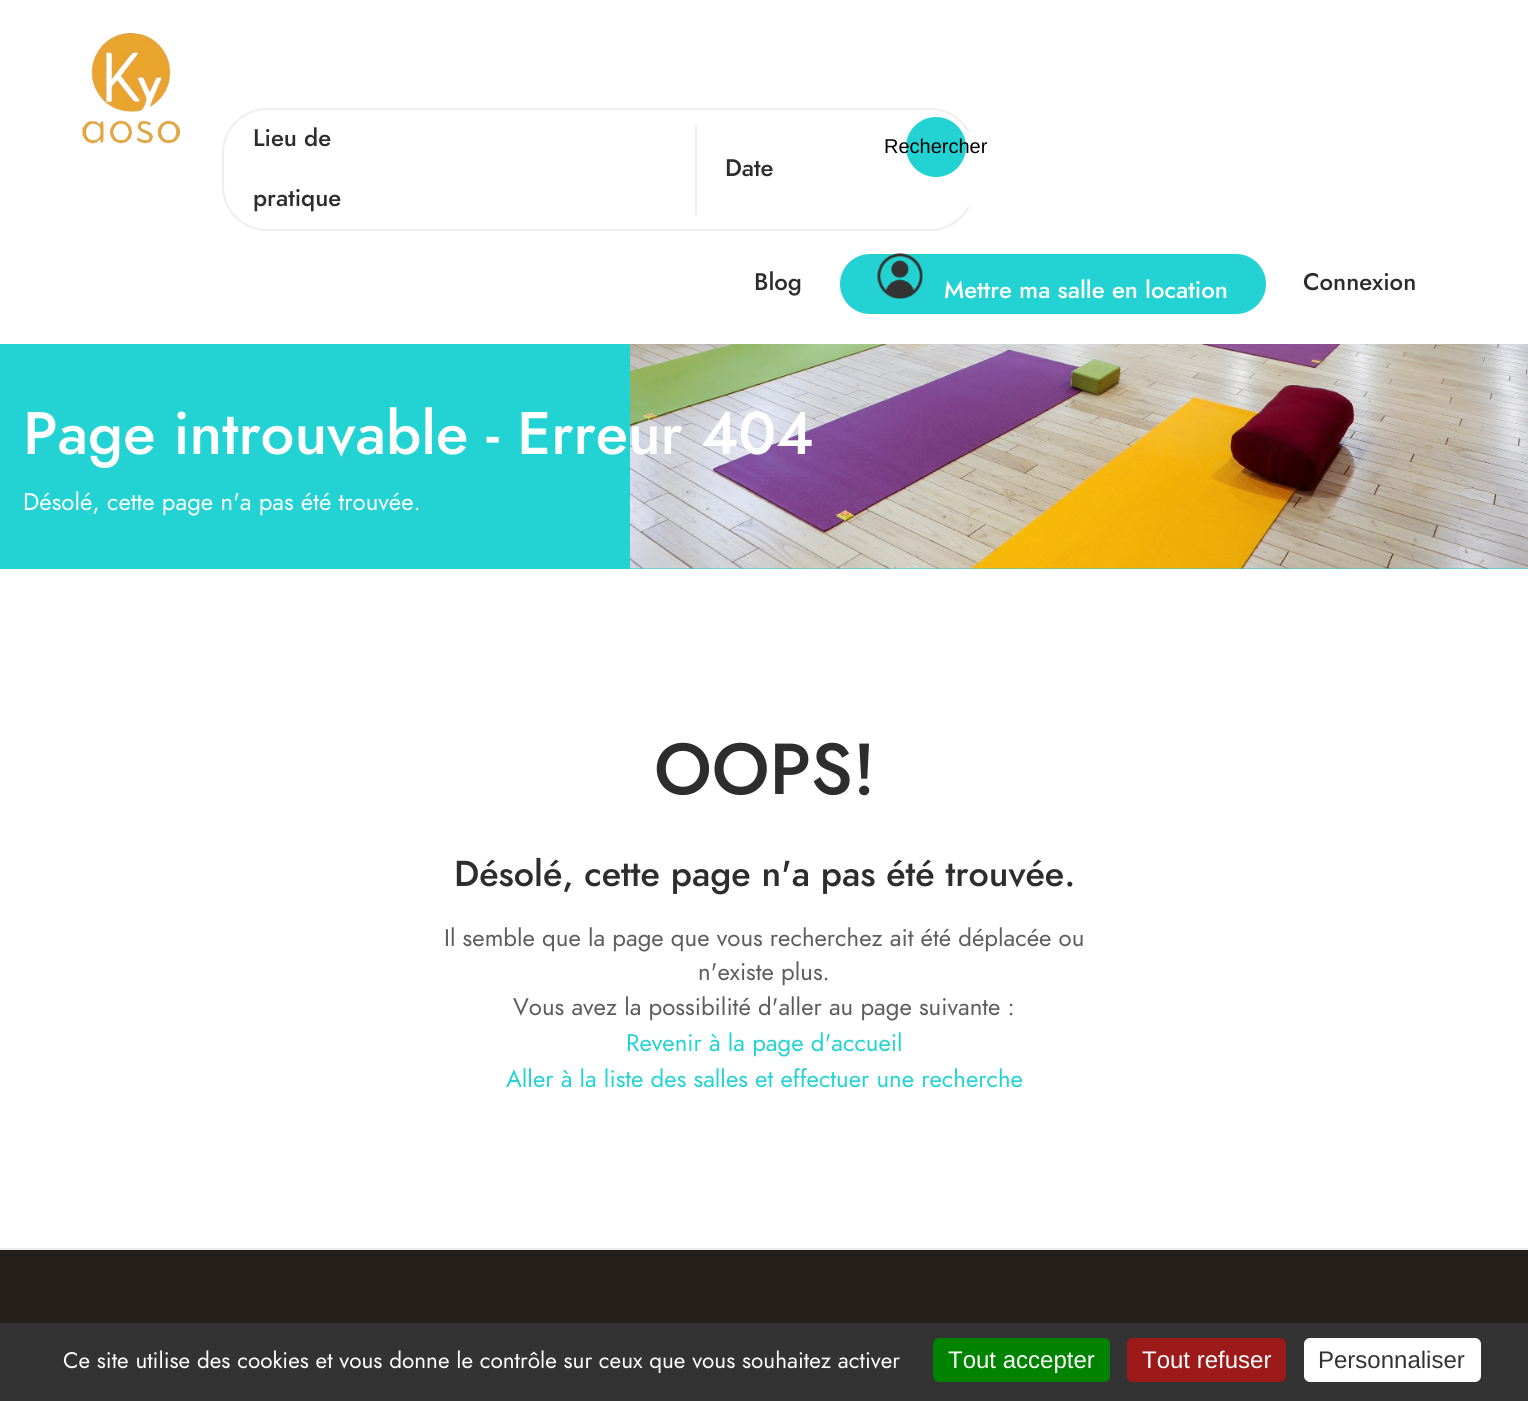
#include <cairo/cairo.h>
#include <math.h>
#include <stddef.h>

typedef struct { double x, y; const char *s; } line_t;
typedef struct { double x, y, w, h; unsigned color; } box_t;
static cairo_t *cr;

static void rgb(unsigned color)
{
	cairo_set_source_rgb(cr, (color >> 16) / 255.0, (color >> 8 & 255) / 255.0, (color & 255) / 255.0);
}

static void rrect(double x, double y, double w, double h, double r)
{
	cairo_new_sub_path(cr);
	cairo_arc(cr, x + w - r, y + h - r, r, 0, M_PI / 2);
	cairo_arc(cr, x + r, y + h - r, r, M_PI / 2, M_PI);
	cairo_arc(cr, x + r, y + r, r, M_PI, 1.5 * M_PI);
	cairo_arc(cr, x + w - r, y + r, r, 1.5 * M_PI, 2 * M_PI);
	cairo_close_path(cr);
}

static void image(const char *path, double x, double y, double w, double h)
{
	cairo_surface_t *image = cairo_image_surface_create_from_png(path);
	cairo_save(cr);
	cairo_set_source_surface(cr, image, x, y);
	cairo_rectangle(cr, x, y, w, h);
	cairo_fill(cr);
	cairo_restore(cr);
	cairo_surface_destroy(image);
}

int main(void) {
	cairo_surface_t *surface = cairo_image_surface_create(CAIRO_FORMAT_RGB24, 1528, 1401);
	cr = cairo_create(surface);
	cairo_font_options_t *options = cairo_font_options_create();
	cairo_font_options_set_hint_metrics(options, CAIRO_HINT_METRICS_OFF);
	cairo_font_options_set_hint_style(options, CAIRO_HINT_STYLE_NONE);
	cairo_set_font_options(cr, options);
	cairo_set_miter_limit(cr, 4);
	rgb(0xffffff);
	cairo_paint(cr);
	image("img/1.png", 82, 33, 98, 111);
	rrect(223, 109, 751, 121, 44);
	rgb(0xeeeeee);
	cairo_stroke(cr);
	cairo_rectangle(cr, 695, 125, 2, 90);
	cairo_fill(cr);
	rgb(0xffffff);
	rrect(786, 132, 278, 75, 37.5);
	cairo_fill(cr);
	rgb(0x23d3d3);
	cairo_arc(cr, 936, 147, 30, 0, 2 * M_PI);
	cairo_fill(cr);
	rrect(840, 254, 426, 60, 30);
	cairo_fill(cr);
	image("img/2.png", 877, 253, 46, 46);
	cairo_rectangle(cr, 0, 344, 1528, 225);
	cairo_fill(cr);
	image("img/3.png", 630, 344, 898, 225);
	{
		static const box_t items[] = {
			{0, 1250, 1528, 73, 0x241f1b},
			{0, 1248, 1528, 2, 0xeeeeee},
			{0, 1323, 1528, 78, 0x333333},
		};
		for (size_t i = 0; i < sizeof items / sizeof *items; i++) {
			rgb(items[i].color);
			cairo_rectangle(cr, items[i].x, items[i].y, items[i].w, items[i].h);
			cairo_fill(cr);
		}
	}
	rgb(0x008300);
	rrect(933, 1338, 177, 44, 6);
	cairo_fill(cr);
	rgb(0x9c1a1a);
	rrect(1127, 1338, 159, 44, 6);
	cairo_fill(cr);
	rgb(0xffffff);
	rrect(1304, 1338, 177, 44, 6);
	cairo_fill(cr);
	cairo_select_font_face(cr, "Jost Medium", CAIRO_FONT_SLANT_NORMAL, CAIRO_FONT_WEIGHT_NORMAL);
	cairo_set_font_size(cr, 24);
	rgb(0x2d2d2d);
	cairo_move_to(cr, 253, 146);
	cairo_show_text(cr, "Lieu de");
	cairo_move_to(cr, 253, 206);
	cairo_show_text(cr, "pratique");
	cairo_select_font_face(cr, "Liberation Sans", CAIRO_FONT_SLANT_NORMAL, CAIRO_FONT_WEIGHT_NORMAL);
	cairo_set_font_size(cr, 20);
	rgb(0x000000);
	cairo_move_to(cr, 884, 153);
	cairo_show_text(cr, "Rechercher");
	cairo_select_font_face(cr, "Jost Medium", CAIRO_FONT_SLANT_NORMAL, CAIRO_FONT_WEIGHT_NORMAL);
	cairo_set_font_size(cr, 24);
	rgb(0x2d2d2d);
	cairo_move_to(cr, 725, 176);
	cairo_show_text(cr, "Date");
	cairo_move_to(cr, 754, 290);
	cairo_show_text(cr, "Blog");
	rgb(0xffffff);
	cairo_move_to(cr, 944, 298);
	cairo_show_text(cr, "Mettre ma salle en location");
	rgb(0x2d2d2d);
	cairo_move_to(cr, 1303, 290);
	cairo_show_text(cr, "Connexion");
	cairo_set_font_size(cr, 60);
	rgb(0xffffff);
	cairo_move_to(cr, 23, 454);
	cairo_show_text(cr, "Page introuvable - Erreur 404");
	cairo_select_font_face(cr, "Jost", CAIRO_FONT_SLANT_NORMAL, CAIRO_FONT_WEIGHT_NORMAL);
	cairo_set_font_size(cr, 24);
	cairo_move_to(cr, 23, 510);
	cairo_show_text(cr, "Désolé, cette page n'a pas été trouvée.");
	cairo_select_font_face(cr, "Jost Medium", CAIRO_FONT_SLANT_NORMAL, CAIRO_FONT_WEIGHT_NORMAL);
	cairo_set_font_size(cr, 72);
	rgb(0x2d2d2d);
	cairo_move_to(cr, 654, 794);
	cairo_show_text(cr, "OOPS!");
	cairo_set_font_size(cr, 36);
	cairo_move_to(cr, 454, 886);
	cairo_show_text(cr, "Désolé, cette page n'a pas été trouvée.");
	cairo_select_font_face(cr, "Jost", CAIRO_FONT_SLANT_NORMAL, CAIRO_FONT_WEIGHT_NORMAL);
	cairo_set_font_size(cr, 24);
	rgb(0x5d5d5d);
	{
		static const line_t items[] = {
			{444, 946, "Il semble que la page que vous recherchez ait été déplacée ou"},
			{698, 980, "n'existe plus."},
			{513, 1015, "Vous avez la possibilité d'aller au page suivante :"},
		};
		for (size_t i = 0; i < sizeof items / sizeof *items; i++) {
			cairo_move_to(cr, items[i].x, items[i].y);
			cairo_show_text(cr, items[i].s);
		}
	}
	rgb(0x23d3d3);
	cairo_move_to(cr, 626, 1051);
	cairo_show_text(cr, "Revenir à la page d'accueil");
	cairo_move_to(cr, 506, 1087);
	cairo_show_text(cr, "Aller à la liste des salles et effectuer une recherche");
	cairo_set_font_size(cr, 22.5);
	rgb(0xffffff);
	cairo_move_to(cr, 63, 1368);
	cairo_show_text(cr, "Ce site utilise des cookies et vous donne le contrôle sur ceux que vous souhaitez activer");
	cairo_select_font_face(cr, "Liberation Sans", CAIRO_FONT_SLANT_NORMAL, CAIRO_FONT_WEIGHT_NORMAL);
	cairo_set_font_size(cr, 24);
	cairo_move_to(cr, 948, 1368);
	cairo_show_text(cr, "Tout accepter");
	cairo_move_to(cr, 1142, 1368);
	cairo_show_text(cr, "Tout refuser");
	rgb(0x333333);
	cairo_move_to(cr, 1318, 1368);
	cairo_show_text(cr, "Personnaliser");
	cairo_surface_write_to_png(surface, "page.png");
	cairo_font_options_destroy(options);
	cairo_destroy(cr);
	cairo_surface_destroy(surface);
	return 0;
}
